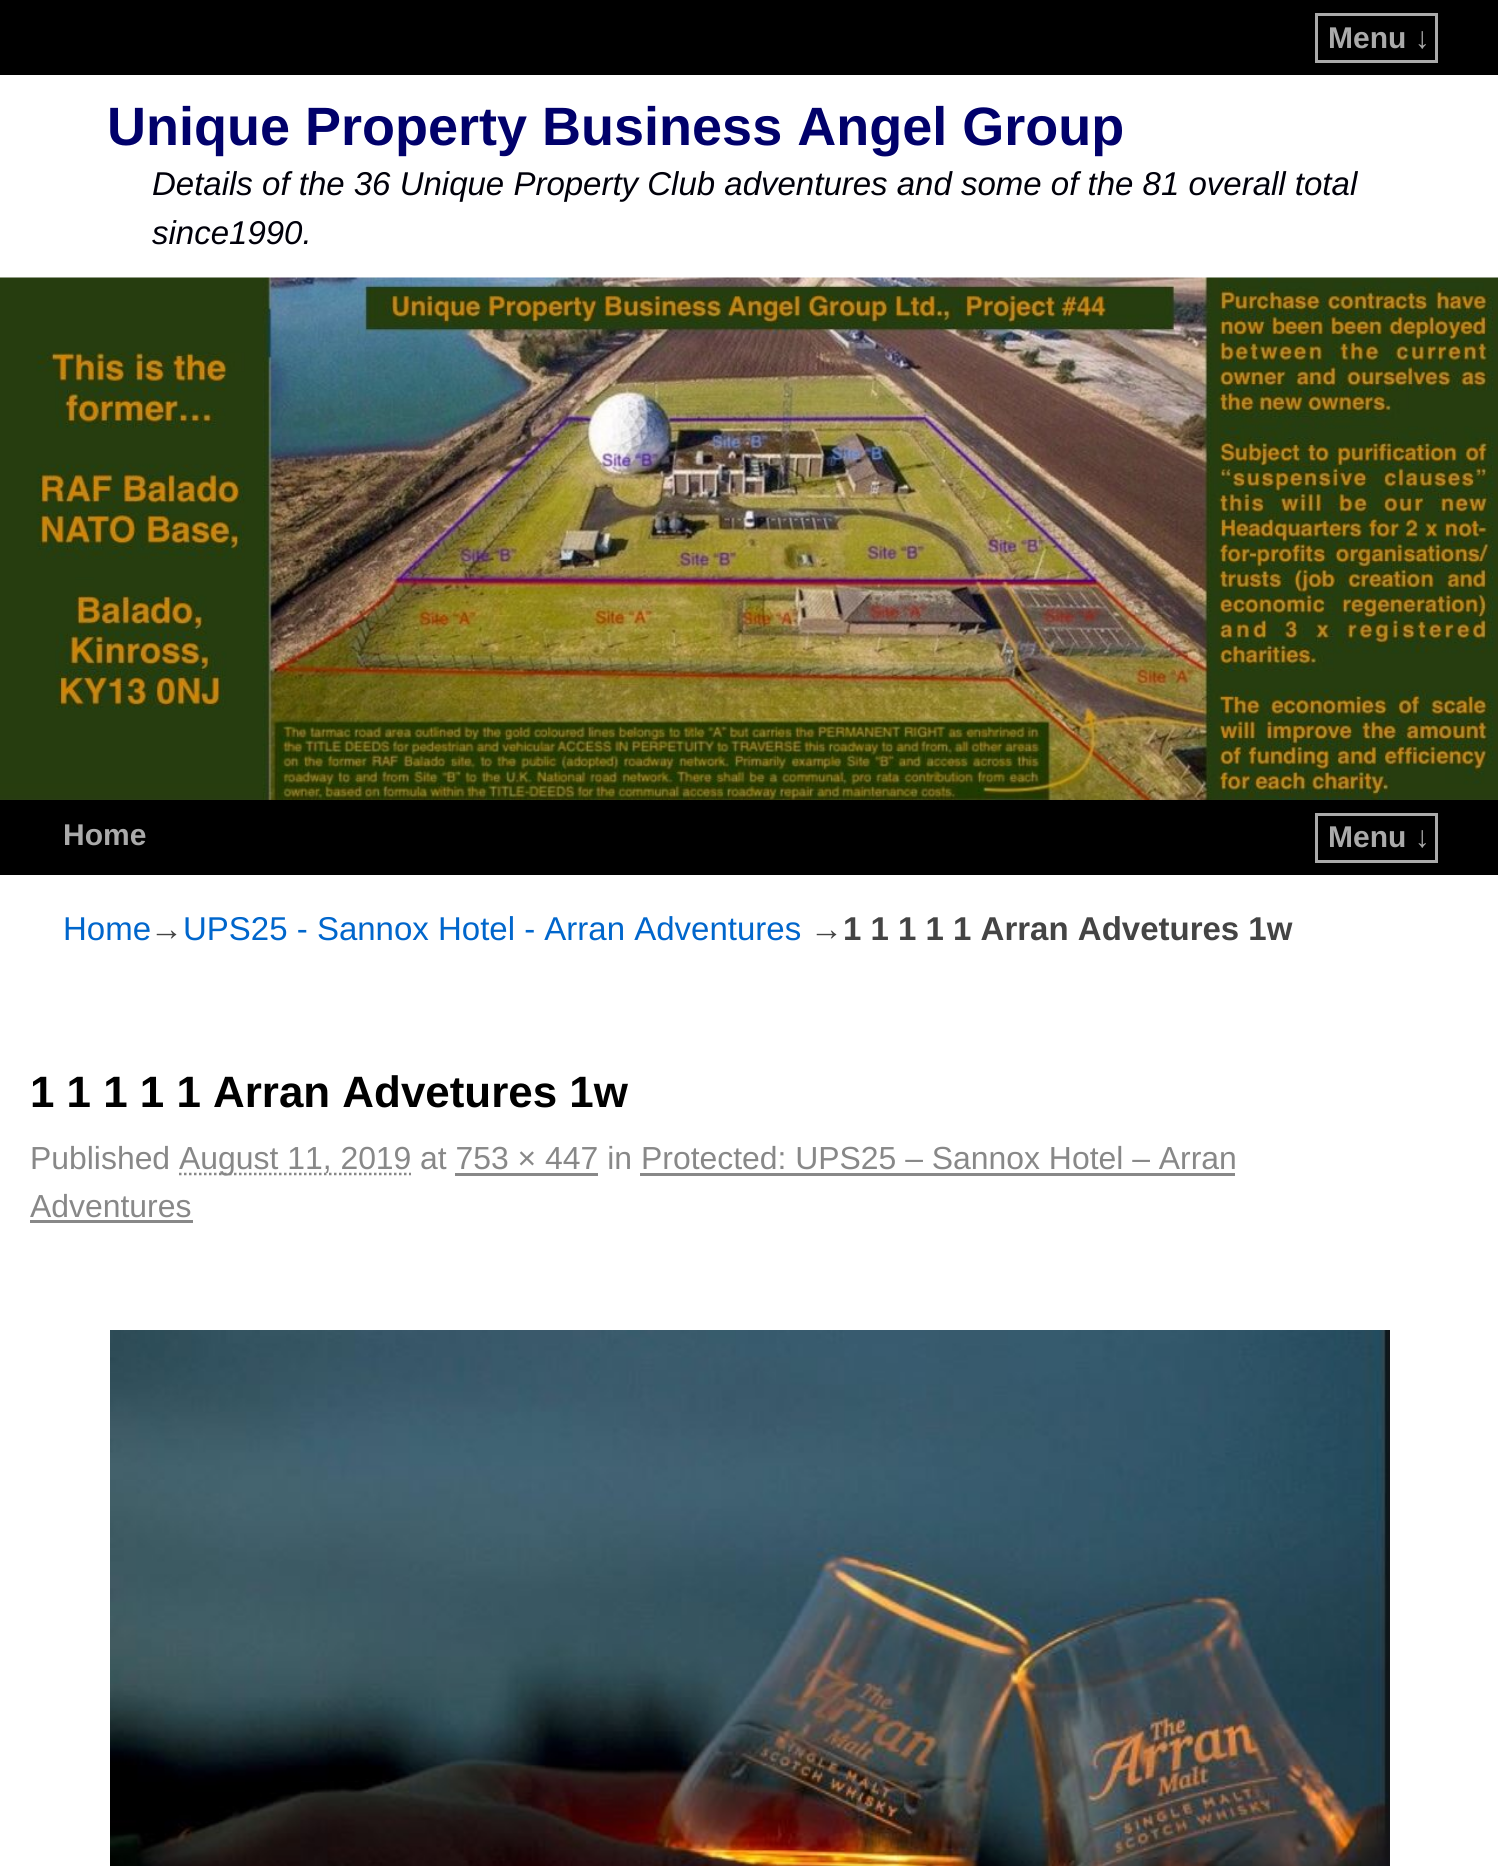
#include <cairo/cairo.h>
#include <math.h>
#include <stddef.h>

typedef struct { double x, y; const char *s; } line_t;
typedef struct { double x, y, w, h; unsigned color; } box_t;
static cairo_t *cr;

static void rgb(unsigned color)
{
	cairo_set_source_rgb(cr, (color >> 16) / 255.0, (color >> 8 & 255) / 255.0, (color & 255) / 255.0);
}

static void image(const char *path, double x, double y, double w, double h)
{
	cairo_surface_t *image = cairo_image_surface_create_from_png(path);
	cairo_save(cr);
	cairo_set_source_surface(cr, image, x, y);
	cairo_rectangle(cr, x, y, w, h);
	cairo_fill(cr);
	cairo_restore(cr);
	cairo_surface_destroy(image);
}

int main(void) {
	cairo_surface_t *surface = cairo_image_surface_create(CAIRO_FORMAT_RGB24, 1498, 1866);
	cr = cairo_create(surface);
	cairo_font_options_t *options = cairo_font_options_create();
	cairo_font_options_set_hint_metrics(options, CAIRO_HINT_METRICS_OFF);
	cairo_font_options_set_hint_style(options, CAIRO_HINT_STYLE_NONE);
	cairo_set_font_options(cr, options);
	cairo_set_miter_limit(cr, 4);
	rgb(0xffffff);
	cairo_paint(cr);
	rgb(0x000000);
	cairo_rectangle(cr, 0, 0, 1498, 75);
	cairo_fill(cr);
	cairo_rectangle(cr, 1316.5, 14.5, 120, 47);
	rgb(0xaaaaaa);
	cairo_set_line_width(cr, 3);
	cairo_stroke(cr);
	image("img/1.png", 0, 277, 1498, 523);
	rgb(0x000000);
	cairo_rectangle(cr, 0, 800, 1498, 75);
	cairo_fill(cr);
	cairo_rectangle(cr, 1316.5, 814.5, 120, 47);
	rgb(0xaaaaaa);
	cairo_stroke(cr);
	cairo_new_path(cr);
	cairo_move_to(cr, 179, 1174);
	cairo_line_to(cr, 411, 1174);
	rgb(0x888888);
	cairo_set_line_width(cr, 2.5);
	cairo_set_dash(cr, (double[]){2.5, 2.5}, 2, 0);
	cairo_stroke(cr);
	{
		static const box_t items[] = {
			{640, 1173, 595, 3, 0x888888},
			{455, 1173, 143, 3, 0x888888},
			{30, 1220, 163, 3, 0x888888},
		};
		for (size_t i = 0; i < sizeof items / sizeof *items; i++) {
			rgb(items[i].color);
			cairo_rectangle(cr, items[i].x, items[i].y, items[i].w, items[i].h);
			cairo_fill(cr);
		}
	}
	image("img/2.png", 110, 1330, 1280, 536);
	cairo_select_font_face(cr, "Liberation Sans", CAIRO_FONT_SLANT_NORMAL, CAIRO_FONT_WEIGHT_BOLD);
	cairo_set_font_size(cr, 30);
	rgb(0xaaaaaa);
	cairo_move_to(cr, 1328, 48);
	cairo_show_text(cr, "Menu ↓");
	cairo_set_font_size(cr, 54);
	rgb(0x01016b);
	cairo_move_to(cr, 107, 145);
	cairo_show_text(cr, "Unique Property Business Angel Group");
	cairo_select_font_face(cr, "Liberation Sans", CAIRO_FONT_SLANT_ITALIC, CAIRO_FONT_WEIGHT_NORMAL);
	cairo_set_font_size(cr, 33);
	rgb(0x00000a);
	cairo_move_to(cr, 152, 195);
	cairo_show_text(cr, "Details of the 36 Unique Property Club adventures and some of the 81 overall total");
	cairo_move_to(cr, 152, 244);
	cairo_show_text(cr, "since1990.");
	cairo_select_font_face(cr, "Liberation Sans", CAIRO_FONT_SLANT_NORMAL, CAIRO_FONT_WEIGHT_BOLD);
	cairo_set_font_size(cr, 30);
	rgb(0xaaaaaa);
	cairo_move_to(cr, 63, 845);
	cairo_show_text(cr, "Home");
	cairo_move_to(cr, 1328, 847);
	cairo_show_text(cr, "Menu ↓");
	cairo_select_font_face(cr, "Liberation Sans", CAIRO_FONT_SLANT_NORMAL, CAIRO_FONT_WEIGHT_NORMAL);
	cairo_set_font_size(cr, 33);
	rgb(0x0066cc);
	cairo_move_to(cr, 63, 940);
	cairo_show_text(cr, "Home");
	rgb(0x444444);
	cairo_move_to(cr, 150, 940);
	cairo_show_text(cr, "→");
	rgb(0x0066cc);
	cairo_move_to(cr, 183, 940);
	cairo_show_text(cr, "UPS25 - Sannox Hotel - Arran Adventures");
	rgb(0x444444);
	cairo_move_to(cr, 810, 940);
	cairo_show_text(cr, "→");
	cairo_select_font_face(cr, "Liberation Sans", CAIRO_FONT_SLANT_NORMAL, CAIRO_FONT_WEIGHT_BOLD);
	cairo_move_to(cr, 843, 940);
	cairo_show_text(cr, "1 1 1 1 1 Arran Advetures 1w");
	cairo_set_font_size(cr, 43.9);
	rgb(0x000000);
	cairo_move_to(cr, 30, 1107);
	cairo_show_text(cr, "1 1 1 1 1 Arran Advetures 1w");
	cairo_select_font_face(cr, "Liberation Sans", CAIRO_FONT_SLANT_NORMAL, CAIRO_FONT_WEIGHT_NORMAL);
	cairo_set_font_size(cr, 31.9);
	rgb(0x888888);
	{
		static const line_t items[] = {
			{30, 1169, "Published"},
			{179, 1169, "August 11, 2019"},
			{420, 1169, "at 753 × 447 in"},
			{641, 1169, "Protected: UPS25 – Sannox Hotel – Arran"},
			{30, 1217, "Adventures"},
		};
		for (size_t i = 0; i < sizeof items / sizeof *items; i++) {
			cairo_move_to(cr, items[i].x, items[i].y);
			cairo_show_text(cr, items[i].s);
		}
	}
	cairo_surface_write_to_png(surface, "page.png");
	cairo_font_options_destroy(options);
	cairo_destroy(cr);
	cairo_surface_destroy(surface);
	return 0;
}
